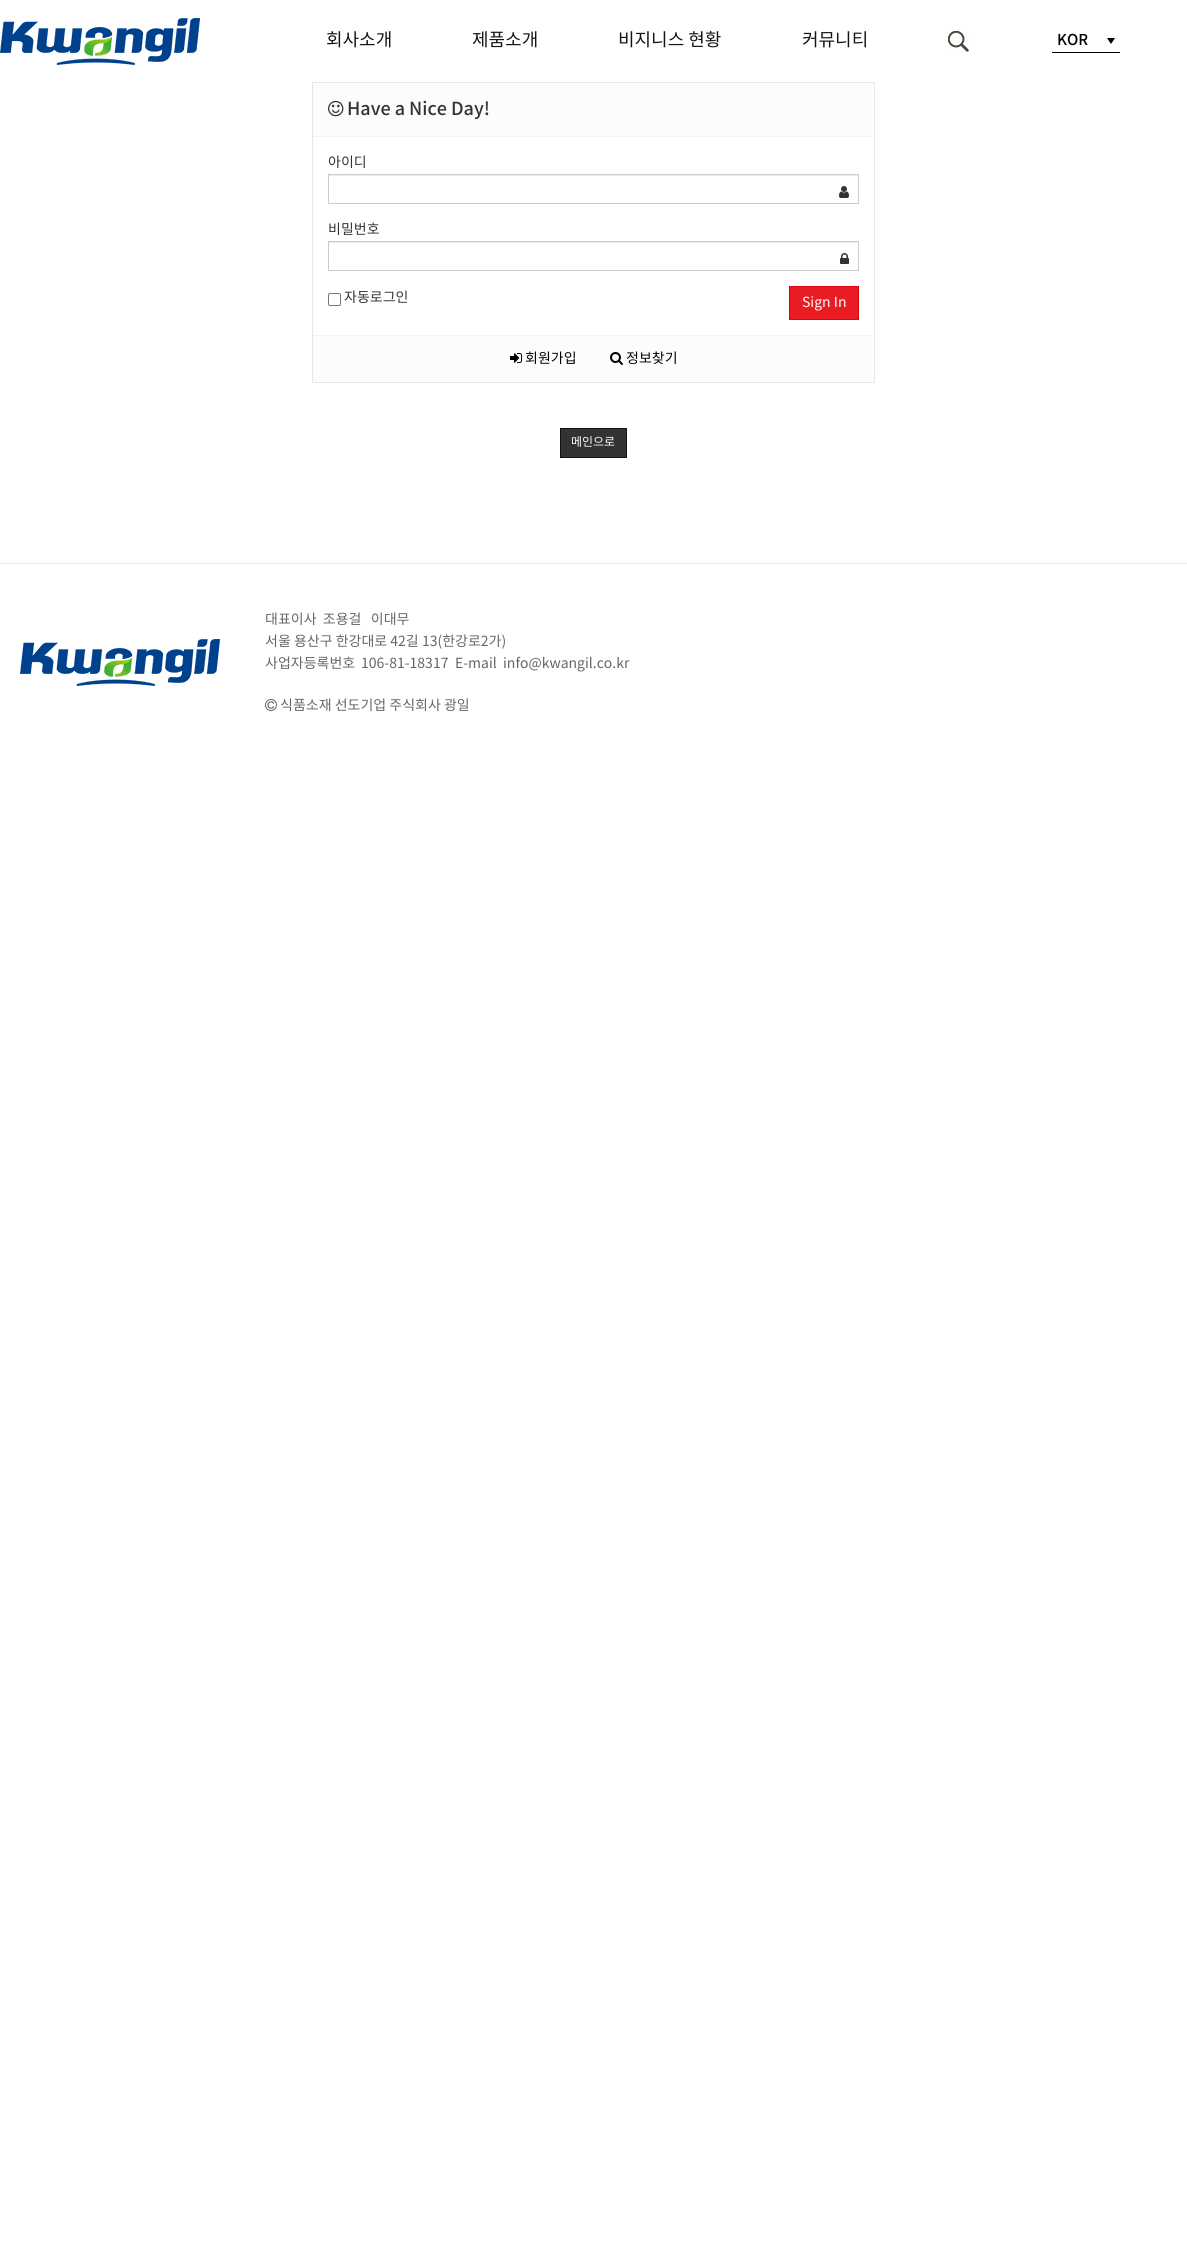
#include <cairo/cairo.h>
#include <math.h>
#include <stddef.h>

typedef struct { double x, y; const char *s; } line_t;
static cairo_t *cr;

static void rgb(unsigned color)
{
	cairo_set_source_rgb(cr, (color >> 16) / 255.0, (color >> 8 & 255) / 255.0, (color & 255) / 255.0);
}

static void rrect(double x, double y, double w, double h, double r)
{
	cairo_new_sub_path(cr);
	cairo_arc(cr, x + w - r, y + h - r, r, 0, M_PI / 2);
	cairo_arc(cr, x + r, y + h - r, r, M_PI / 2, M_PI);
	cairo_arc(cr, x + r, y + r, r, M_PI, 1.5 * M_PI);
	cairo_arc(cr, x + w - r, y + r, r, 1.5 * M_PI, 2 * M_PI);
	cairo_close_path(cr);
}

static void image(const char *path, double x, double y, double w, double h)
{
	cairo_surface_t *image = cairo_image_surface_create_from_png(path);
	cairo_save(cr);
	cairo_set_source_surface(cr, image, x, y);
	cairo_rectangle(cr, x, y, w, h);
	cairo_fill(cr);
	cairo_restore(cr);
	cairo_surface_destroy(image);
}

int main(void) {
	cairo_surface_t *surface = cairo_image_surface_create(CAIRO_FORMAT_RGB24, 1187, 2258);
	cr = cairo_create(surface);
	cairo_font_options_t *options = cairo_font_options_create();
	cairo_font_options_set_hint_metrics(options, CAIRO_HINT_METRICS_OFF);
	cairo_font_options_set_hint_style(options, CAIRO_HINT_STYLE_NONE);
	cairo_set_font_options(cr, options);
	cairo_set_miter_limit(cr, 4);
	rgb(0xffffff);
	cairo_paint(cr);
	image("img/1.png", 0, 18, 200, 47);
	image("img/2.png", 948, 31, 21, 21);
	image("img/3.png", 1107, 38, 8, 6);
	rgb(0x000000);
	cairo_rectangle(cr, 1052, 52, 68, 1);
	cairo_fill(cr);
	rgb(0xfcfcfc);
	cairo_rectangle(cr, 312.5, 82.5, 562, 300);
	cairo_fill_preserve(cr);
	rgb(0xe7e7e7);
	cairo_set_line_width(cr, 1);
	cairo_stroke(cr);
	rgb(0xf3f3f3);
	cairo_rectangle(cr, 313, 136, 561, 1);
	cairo_fill(cr);
	image("img/4.png", 328, 100, 16, 17);
	rgb(0xffffff);
	cairo_rectangle(cr, 313, 137, 561, 198);
	cairo_fill(cr);
	rgb(0xececec);
	cairo_rectangle(cr, 329, 175, 529, 1);
	cairo_fill(cr);
	cairo_rectangle(cr, 328.5, 174.5, 530, 29);
	rgb(0xcccccc);
	cairo_stroke(cr);
	image("img/5.png", 839, 186, 10, 12);
	rgb(0xececec);
	cairo_rectangle(cr, 329, 242, 529, 1);
	cairo_fill(cr);
	cairo_rectangle(cr, 328.5, 241.5, 530, 29);
	rgb(0xcccccc);
	cairo_stroke(cr);
	image("img/6.png", 840, 253, 9, 11);
	rrect(328.5, 293.5, 12, 12, 1.5);
	rgb(0x767676);
	cairo_stroke(cr);
	rgb(0xe91b23);
	cairo_rectangle(cr, 789.5, 286.5, 69, 33);
	cairo_fill_preserve(cr);
	rgb(0xd5070f);
	cairo_stroke(cr);
	rgb(0xf3f3f3);
	cairo_rectangle(cr, 313, 335, 561, 1);
	cairo_fill(cr);
	image("img/7.png", 510, 353, 12, 10);
	image("img/8.png", 610, 352, 13, 13);
	rgb(0x333333);
	cairo_rectangle(cr, 560.5, 428.5, 66, 29);
	cairo_fill_preserve(cr);
	rgb(0x111111);
	cairo_stroke(cr);
	rgb(0xe5e5e5);
	cairo_rectangle(cr, 0, 563, 1187, 1);
	cairo_fill(cr);
	image("img/1.png", 20, 639, 200, 47);
	image("img/9.png", 265, 699, 12, 12);
	cairo_select_font_face(cr, "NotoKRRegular", CAIRO_FONT_SLANT_NORMAL, CAIRO_FONT_WEIGHT_NORMAL);
	cairo_set_font_size(cr, 18);
	rgb(0x151515);
	{
		static const line_t items[] = {
			{326, 46, "회사소개"},
			{472, 46, "제품소개"},
			{618, 46, "비지니스 현황"},
			{802, 46, "커뮤니티"},
		};
		for (size_t i = 0; i < sizeof items / sizeof *items; i++) {
			cairo_move_to(cr, items[i].x, items[i].y);
			cairo_show_text(cr, items[i].s);
		}
	}
	cairo_select_font_face(cr, "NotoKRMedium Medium", CAIRO_FONT_SLANT_NORMAL, CAIRO_FONT_WEIGHT_NORMAL);
	cairo_set_font_size(cr, 15);
	rgb(0x000000);
	cairo_move_to(cr, 1057, 45);
	cairo_show_text(cr, "KOR");
	cairo_set_font_size(cr, 18);
	rgb(0x333333);
	cairo_move_to(cr, 347, 115);
	cairo_show_text(cr, "Have a Nice Day!");
	cairo_select_font_face(cr, "NotoKRRegular", CAIRO_FONT_SLANT_NORMAL, CAIRO_FONT_WEIGHT_NORMAL);
	cairo_set_font_size(cr, 14);
	{
		static const line_t items[] = {
			{328, 167, "아이디"},
			{328, 234, "비밀번호"},
			{344, 302, "자동로그인"},
		};
		for (size_t i = 0; i < sizeof items / sizeof *items; i++) {
			cairo_move_to(cr, items[i].x, items[i].y);
			cairo_show_text(cr, items[i].s);
		}
	}
	rgb(0xffffff);
	cairo_move_to(cr, 802, 307);
	cairo_show_text(cr, "Sign In");
	rgb(0x000000);
	cairo_move_to(cr, 525, 363);
	cairo_show_text(cr, "회원가입");
	cairo_move_to(cr, 626, 363);
	cairo_show_text(cr, "정보찾기");
	cairo_set_font_size(cr, 12);
	rgb(0xffffff);
	cairo_move_to(cr, 571, 446);
	cairo_show_text(cr, "메인으로");
	cairo_set_font_size(cr, 14);
	rgb(0x666666);
	{
		static const line_t items[] = {
			{265, 624, "대표이사  조용걸   이대무"},
			{265, 646, "서울 용산구 한강대로 42길 13(한강로2가)"},
			{265, 668, "사업자등록번호"},
			{361, 668, "106-81-18317"},
			{455, 668, "E-mail"},
			{503, 668, "info@kwangil.co.kr"},
			{280, 710, "식품소재 선도기업 주식회사 광일"},
		};
		for (size_t i = 0; i < sizeof items / sizeof *items; i++) {
			cairo_move_to(cr, items[i].x, items[i].y);
			cairo_show_text(cr, items[i].s);
		}
	}
	cairo_surface_write_to_png(surface, "page.png");
	cairo_font_options_destroy(options);
	cairo_destroy(cr);
	cairo_surface_destroy(surface);
	return 0;
}
